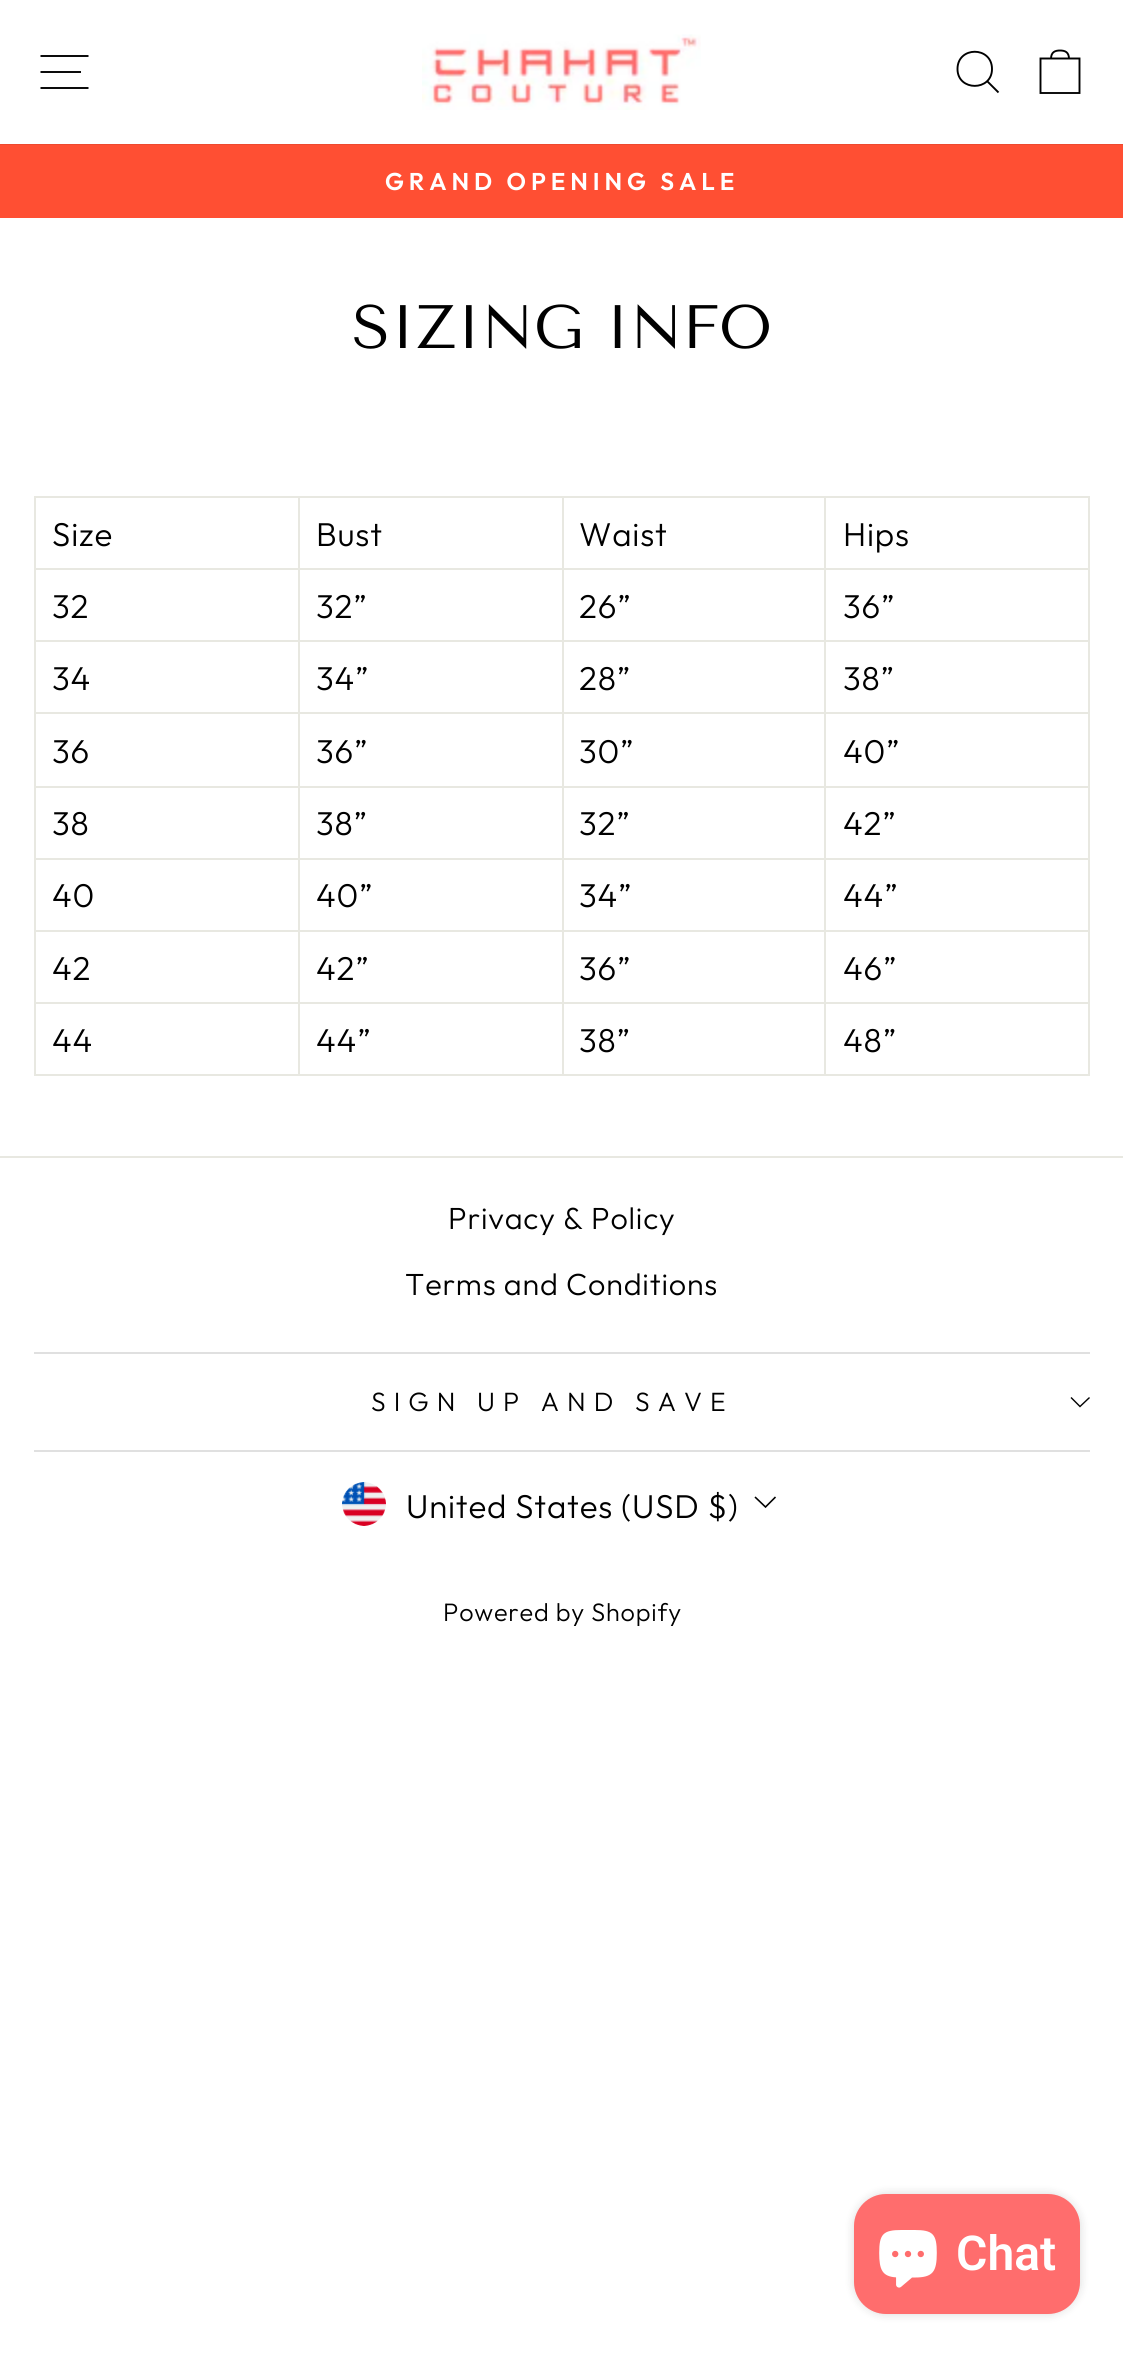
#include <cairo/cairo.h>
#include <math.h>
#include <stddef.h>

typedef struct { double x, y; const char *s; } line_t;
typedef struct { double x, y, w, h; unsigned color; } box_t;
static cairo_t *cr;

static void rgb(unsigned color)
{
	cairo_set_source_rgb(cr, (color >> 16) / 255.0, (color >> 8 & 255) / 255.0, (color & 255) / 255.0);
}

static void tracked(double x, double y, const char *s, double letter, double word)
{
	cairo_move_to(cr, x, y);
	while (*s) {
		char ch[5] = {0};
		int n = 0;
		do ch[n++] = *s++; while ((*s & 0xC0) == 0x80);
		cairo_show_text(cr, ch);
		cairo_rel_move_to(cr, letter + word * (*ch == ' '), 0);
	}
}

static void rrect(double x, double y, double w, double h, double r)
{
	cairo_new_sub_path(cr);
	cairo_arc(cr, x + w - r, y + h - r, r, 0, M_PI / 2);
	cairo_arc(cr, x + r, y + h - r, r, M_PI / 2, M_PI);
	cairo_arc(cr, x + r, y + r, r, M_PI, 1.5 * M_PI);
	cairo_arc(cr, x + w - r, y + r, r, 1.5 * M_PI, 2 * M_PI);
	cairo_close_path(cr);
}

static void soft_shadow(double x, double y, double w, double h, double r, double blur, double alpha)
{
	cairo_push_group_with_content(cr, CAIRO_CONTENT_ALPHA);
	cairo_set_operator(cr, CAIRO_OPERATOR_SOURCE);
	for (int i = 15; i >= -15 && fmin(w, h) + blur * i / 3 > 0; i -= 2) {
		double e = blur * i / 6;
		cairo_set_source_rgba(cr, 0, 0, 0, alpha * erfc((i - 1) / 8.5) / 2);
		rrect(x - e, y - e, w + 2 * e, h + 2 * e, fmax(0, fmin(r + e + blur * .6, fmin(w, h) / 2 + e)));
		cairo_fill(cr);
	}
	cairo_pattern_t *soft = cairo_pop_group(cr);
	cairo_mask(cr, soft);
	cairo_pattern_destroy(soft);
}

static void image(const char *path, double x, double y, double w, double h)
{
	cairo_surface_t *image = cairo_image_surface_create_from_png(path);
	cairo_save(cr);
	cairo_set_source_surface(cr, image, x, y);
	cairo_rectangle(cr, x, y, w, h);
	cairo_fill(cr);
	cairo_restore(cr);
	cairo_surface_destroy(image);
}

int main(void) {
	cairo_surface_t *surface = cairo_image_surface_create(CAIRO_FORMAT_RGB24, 1123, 2356);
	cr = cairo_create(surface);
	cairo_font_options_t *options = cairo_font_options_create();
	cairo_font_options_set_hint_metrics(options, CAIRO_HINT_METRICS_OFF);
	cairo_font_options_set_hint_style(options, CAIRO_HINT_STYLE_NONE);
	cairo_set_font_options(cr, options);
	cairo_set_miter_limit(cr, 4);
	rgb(0xffffff);
	cairo_paint(cr);
	rgb(0xff4f33);
	cairo_rectangle(cr, 0, 144, 1123, 74);
	cairo_fill(cr);
	cairo_save(cr);
	cairo_rectangle(cr, 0, 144, 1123, 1);
	cairo_clip(cr);
	rgb(0x000000);
	soft_shadow(0, 0, 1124, 144, 0, 1, 0.2);
	cairo_restore(cr);
	cairo_new_path(cr);
	cairo_move_to(cr, 40.5, 56);
	cairo_line_to(cr, 88.5, 56);
	cairo_move_to(cr, 40.5, 72);
	cairo_line_to(cr, 81, 72);
	cairo_move_to(cr, 40.5, 88);
	cairo_line_to(cr, 88.5, 88);
	rgb(0x000000);
	cairo_set_line_width(cr, 1.9);
	cairo_stroke(cr);
	image("img/1.png", 422, 34, 279, 76);
	cairo_new_path(cr);
	cairo_move_to(cr, 992, 69);
	cairo_curve_to(cr, 992, 91.5, 957.5, 91.5, 957.5, 69);
	cairo_curve_to(cr, 957.5, 46, 992, 46, 992, 69);
	cairo_close_path(cr);
	cairo_move_to(cr, 998.5, 92.5);
	cairo_line_to(cr, 987.5, 81.5);
	cairo_stroke(cr);
	cairo_new_path(cr);
	cairo_move_to(cr, 1040.5, 58.5);
	cairo_line_to(cr, 1079.5, 58.5);
	cairo_line_to(cr, 1079.5, 93);
	cairo_line_to(cr, 1040.5, 93);
	cairo_close_path(cr);
	cairo_move_to(cr, 1051, 59);
	cairo_curve_to(cr, 1051, 52, 1055, 50.5, 1060, 50.5);
	cairo_curve_to(cr, 1065, 50.5, 1069, 52, 1069, 59);
	cairo_stroke(cr);
	{
		static const box_t items[] = {
			{34, 496, 1056, 580, 0xe8e8e1},
			{36, 498, 262, 70, 0xffffff},
			{300, 498, 262, 70, 0xffffff},
			{564, 498, 260, 70, 0xffffff},
			{826, 498, 262, 70, 0xffffff},
			{36, 570, 262, 70, 0xffffff},
			{300, 570, 262, 70, 0xffffff},
			{564, 570, 260, 70, 0xffffff},
			{826, 570, 262, 70, 0xffffff},
			{36, 642, 262, 70, 0xffffff},
			{300, 642, 262, 70, 0xffffff},
			{564, 642, 260, 70, 0xffffff},
			{826, 642, 262, 70, 0xffffff},
			{36, 714, 262, 72, 0xffffff},
			{300, 714, 262, 72, 0xffffff},
			{564, 714, 260, 72, 0xffffff},
			{826, 714, 262, 72, 0xffffff},
			{36, 788, 262, 70, 0xffffff},
			{300, 788, 262, 70, 0xffffff},
			{564, 788, 260, 70, 0xffffff},
			{826, 788, 262, 70, 0xffffff},
			{36, 860, 262, 70, 0xffffff},
			{300, 860, 262, 70, 0xffffff},
			{564, 860, 260, 70, 0xffffff},
			{826, 860, 262, 70, 0xffffff},
			{36, 932, 262, 70, 0xffffff},
			{300, 932, 262, 70, 0xffffff},
			{564, 932, 260, 70, 0xffffff},
			{826, 932, 262, 70, 0xffffff},
			{36, 1004, 262, 70, 0xffffff},
			{300, 1004, 262, 70, 0xffffff},
			{564, 1004, 260, 70, 0xffffff},
			{826, 1004, 262, 70, 0xffffff},
			{0, 1156, 1123, 2, 0xe8e8e1},
			{34, 1352, 1056, 2, 0xe0e0e0},
		};
		for (size_t i = 0; i < sizeof items / sizeof *items; i++) {
			rgb(items[i].color);
			cairo_rectangle(cr, items[i].x, items[i].y, items[i].w, items[i].h);
			cairo_fill(cr);
		}
	}
	cairo_new_path(cr);
	cairo_move_to(cr, 1071, 1397.5);
	cairo_line_to(cr, 1080, 1406.5);
	cairo_line_to(cr, 1089.5, 1397.5);
	rgb(0x000000);
	cairo_set_line_width(cr, 1.4);
	cairo_stroke(cr);
	rgb(0xe0e0e0);
	cairo_rectangle(cr, 34, 1450, 1056, 2);
	cairo_fill(cr);
	image("img/2.png", 342, 1482, 44, 44);
	cairo_new_path(cr);
	cairo_move_to(cr, 755, 1497);
	cairo_line_to(cr, 765.5, 1507);
	cairo_line_to(cr, 775.5, 1497);
	rgb(0x000000);
	cairo_set_line_width(cr, 1.6);
	cairo_stroke(cr);
	rgb(0x000000);
	soft_shadow(854, 2194, 226, 120, 32, 5, 0.15);
	rgb(0xff6d6d);
	rrect(854, 2194, 226, 120, 32);
	cairo_fill(cr);
	image("img/3.png", 879, 2230, 58, 58);
	cairo_select_font_face(cr, "Outfit SemiBold", CAIRO_FONT_SLANT_NORMAL, CAIRO_FONT_WEIGHT_NORMAL);
	cairo_set_font_size(cr, 24.25);
	rgb(0xffffff);
	tracked(385, 190, "GRAND OPENING SALE", 4.9, 0);
	cairo_select_font_face(cr, "Tenor Sans", CAIRO_FONT_SLANT_NORMAL, CAIRO_FONT_WEIGHT_NORMAL);
	cairo_set_font_size(cr, 61.25);
	rgb(0x000000);
	cairo_move_to(cr, 352, 348);
	cairo_show_text(cr, "SIZING INFO");
	cairo_select_font_face(cr, "Outfit Light", CAIRO_FONT_SLANT_NORMAL, CAIRO_FONT_WEIGHT_NORMAL);
	cairo_set_font_size(cr, 33.1);
	{
		static const line_t items[] = {
			{52, 546, "Size"},
			{316, 546, "Bust"},
			{579, 546, "Waist"},
			{843, 546, "Hips"},
			{52, 618, "32"},
			{316, 618, "32”"},
			{579, 618, "26”"},
			{843, 618, "36”"},
			{52, 690, "34"},
			{316, 690, "34”"},
			{579, 690, "28”"},
			{843, 690, "38”"},
			{52, 763, "36"},
			{316, 763, "36”"},
			{579, 763, "30”"},
			{843, 763, "40”"},
			{52, 835, "38"},
			{316, 835, "38”"},
			{579, 835, "32”"},
			{843, 835, "42”"},
			{52, 907, "40"},
			{316, 907, "40”"},
			{579, 907, "34”"},
			{843, 907, "44”"},
			{52, 980, "42"},
			{316, 980, "42”"},
			{579, 980, "36”"},
			{843, 980, "46”"},
			{52, 1052, "44"},
			{316, 1052, "44”"},
			{579, 1052, "38”"},
			{843, 1052, "48”"},
		};
		for (size_t i = 0; i < sizeof items / sizeof *items; i++) {
			tracked(items[i].x, items[i].y, items[i].s, 0.8, 0);
		}
	}
	cairo_set_font_size(cr, 30.6);
	tracked(448, 1229, "Privacy & Policy", 0.8, 0);
	tracked(405, 1295, "Terms and Conditions", 0.8, 0);
	cairo_set_font_size(cr, 26.5);
	tracked(371, 1411, "SIGN UP AND SAVE", 8, 0);
	cairo_set_font_size(cr, 33.1);
	tracked(406, 1518, "United States (USD $)", 0.8, 0);
	cairo_set_font_size(cr, 25.25);
	tracked(443, 1621, "Powered by Shopify", 0.8, 0);
	cairo_select_font_face(cr, "Roboto SemiBold", CAIRO_FONT_SLANT_NORMAL, CAIRO_FONT_WEIGHT_NORMAL);
	cairo_set_font_size(cr, 48);
	rgb(0xffffff);
	cairo_move_to(cr, 956, 2270);
	cairo_show_text(cr, "Chat");
	cairo_surface_write_to_png(surface, "page.png");
	cairo_font_options_destroy(options);
	cairo_destroy(cr);
	cairo_surface_destroy(surface);
	return 0;
}
